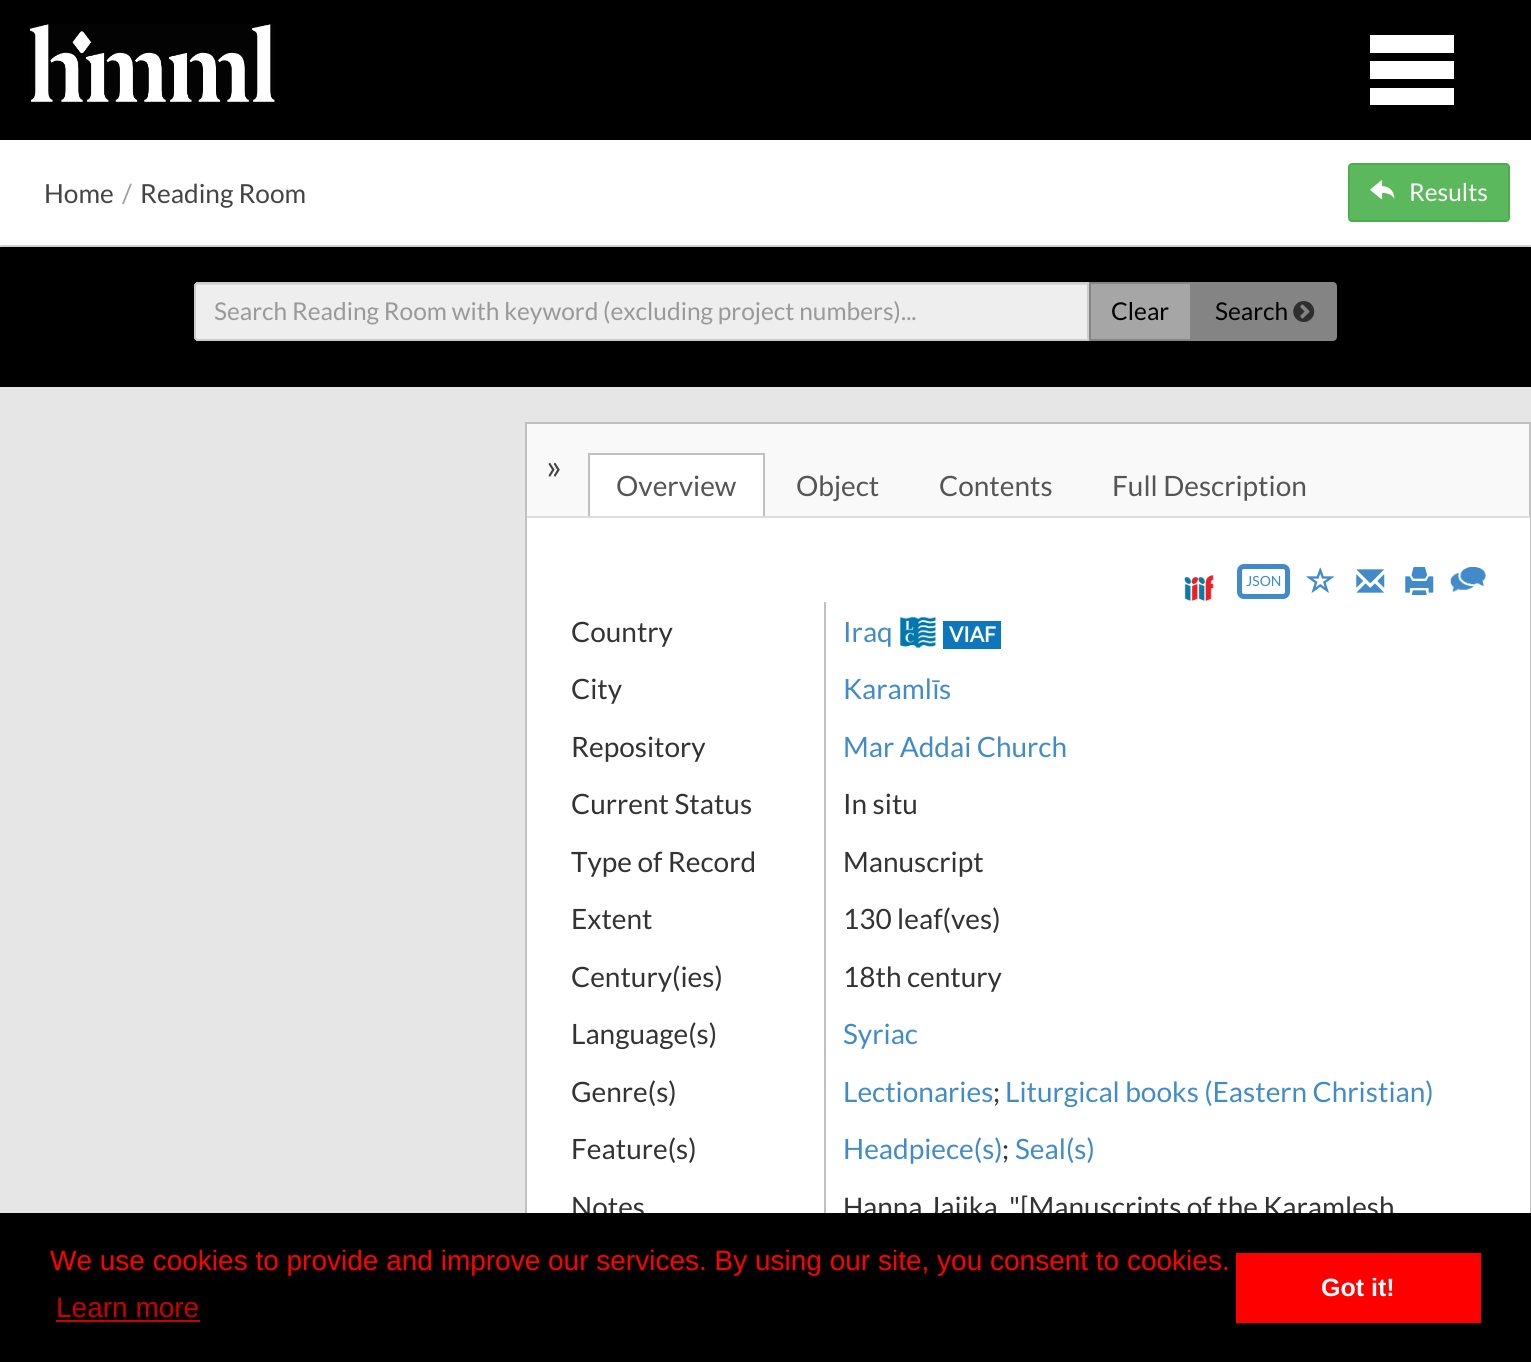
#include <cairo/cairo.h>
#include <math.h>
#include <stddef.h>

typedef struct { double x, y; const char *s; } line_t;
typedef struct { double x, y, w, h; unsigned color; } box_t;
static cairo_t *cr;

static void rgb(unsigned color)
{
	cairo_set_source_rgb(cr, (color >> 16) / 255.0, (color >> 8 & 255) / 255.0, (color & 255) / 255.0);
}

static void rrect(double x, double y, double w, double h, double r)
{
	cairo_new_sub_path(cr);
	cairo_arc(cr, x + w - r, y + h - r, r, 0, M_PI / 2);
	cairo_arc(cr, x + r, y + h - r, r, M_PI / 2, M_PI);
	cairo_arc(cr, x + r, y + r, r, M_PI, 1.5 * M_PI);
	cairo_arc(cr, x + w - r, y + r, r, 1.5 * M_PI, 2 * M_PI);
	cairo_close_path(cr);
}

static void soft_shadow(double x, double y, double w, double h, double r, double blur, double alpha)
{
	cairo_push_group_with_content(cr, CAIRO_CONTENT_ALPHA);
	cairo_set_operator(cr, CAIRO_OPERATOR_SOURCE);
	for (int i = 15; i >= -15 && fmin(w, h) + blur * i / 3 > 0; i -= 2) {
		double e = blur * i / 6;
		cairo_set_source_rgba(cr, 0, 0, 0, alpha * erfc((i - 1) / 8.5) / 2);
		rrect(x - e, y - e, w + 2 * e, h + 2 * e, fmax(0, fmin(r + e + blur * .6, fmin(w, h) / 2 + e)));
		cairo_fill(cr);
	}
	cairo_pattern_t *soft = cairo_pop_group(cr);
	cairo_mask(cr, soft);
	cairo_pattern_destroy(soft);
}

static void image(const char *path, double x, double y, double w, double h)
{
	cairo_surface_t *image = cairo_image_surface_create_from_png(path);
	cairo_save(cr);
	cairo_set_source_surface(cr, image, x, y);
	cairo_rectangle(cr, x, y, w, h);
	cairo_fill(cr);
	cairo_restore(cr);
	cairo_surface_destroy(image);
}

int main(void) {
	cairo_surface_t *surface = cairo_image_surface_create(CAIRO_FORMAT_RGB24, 1531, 1362);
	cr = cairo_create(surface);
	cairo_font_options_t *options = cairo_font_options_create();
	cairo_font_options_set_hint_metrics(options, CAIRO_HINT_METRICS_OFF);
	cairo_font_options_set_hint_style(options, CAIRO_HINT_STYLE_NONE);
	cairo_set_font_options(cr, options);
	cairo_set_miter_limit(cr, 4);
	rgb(0xe6e6e6);
	cairo_paint(cr);
	rgb(0x000000);
	cairo_rectangle(cr, 0, 0, 1531, 140);
	cairo_fill(cr);
	image("img/1.png", 30, 24, 245, 78);
	{
		static const box_t items[] = {
			{1370, 61, 84, 18, 0xffffff},
			{1370, 35, 84, 18, 0xffffff},
			{1370, 88, 84, 17, 0xffffff},
			{0, 247, 1531, 140, 0x000000},
		};
		for (size_t i = 0; i < sizeof items / sizeof *items; i++) {
			rgb(items[i].color);
			cairo_rectangle(cr, items[i].x, items[i].y, items[i].w, items[i].h);
			cairo_fill(cr);
		}
	}
	rgb(0x000000);
	soft_shadow(0, 144, 1531, 105, 0, 1, 0.1);
	rgb(0xffffff);
	cairo_rectangle(cr, 0, 140, 1531, 105);
	cairo_fill(cr);
	rgb(0x5cb85c);
	rrect(1349, 164, 160, 57, 3);
	cairo_fill_preserve(cr);
	rgb(0x4cae4c);
	cairo_stroke(cr);
	image("img/2.png", 1370, 180, 25, 20);
	rgb(0xeeeeee);
	cairo_new_path(cr);
	cairo_move_to(cr, 198, 282);
	cairo_line_to(cr, 1089, 282);
	cairo_line_to(cr, 1089, 341);
	cairo_line_to(cr, 198, 341);
	cairo_curve_to(cr, 196, 341, 194, 339, 194, 337);
	cairo_line_to(cr, 194, 286);
	cairo_curve_to(cr, 194, 284, 196, 282, 198, 282);
	cairo_close_path(cr);
	cairo_fill(cr);
	rgb(0xdcdcdc);
	cairo_new_path(cr);
	cairo_move_to(cr, 198, 285);
	cairo_line_to(cr, 1087, 285);
	cairo_line_to(cr, 1087, 284);
	cairo_line_to(cr, 198, 284);
	cairo_curve_to(cr, 196, 284, 196, 286, 196, 287);
	cairo_curve_to(cr, 196, 286, 197, 285, 198, 285);
	cairo_close_path(cr);
	cairo_fill(cr);
	cairo_new_path(cr);
	cairo_move_to(cr, 198, 283);
	cairo_line_to(cr, 1088, 283);
	cairo_line_to(cr, 1088, 340);
	cairo_line_to(cr, 198, 340);
	cairo_curve_to(cr, 196.5, 340, 195, 338.5, 195, 337);
	cairo_line_to(cr, 195, 286);
	cairo_curve_to(cr, 195, 284.5, 196.5, 283, 198, 283);
	cairo_close_path(cr);
	rgb(0xcccccc);
	cairo_stroke(cr);
	rgb(0xa6a6a6);
	cairo_rectangle(cr, 1090, 283, 101, 57);
	cairo_fill_preserve(cr);
	rgb(0x858585);
	cairo_stroke(cr);
	rgb(0x848484);
	cairo_new_path(cr);
	cairo_move_to(cr, 1193, 283);
	cairo_line_to(cr, 1333, 283);
	cairo_curve_to(cr, 1334.5, 283, 1336, 284.5, 1336, 286);
	cairo_line_to(cr, 1336, 337);
	cairo_curve_to(cr, 1336, 338.5, 1334.5, 340, 1333, 340);
	cairo_line_to(cr, 1193, 340);
	cairo_close_path(cr);
	cairo_fill_preserve(cr);
	cairo_stroke(cr);
	image("img/3.png", 1293, 301, 22, 21);
	rgb(0xf9f9f9);
	cairo_rectangle(cr, 526, 423, 1004, 94);
	cairo_fill_preserve(cr);
	rgb(0xc0c0c0);
	cairo_stroke(cr);
	rgb(0xffffff);
	cairo_rectangle(cr, 590, 455, 173, 61);
	cairo_fill(cr);
	rgb(0xc0c0c0);
	cairo_rectangle(cr, 588, 453, 177, 2);
	cairo_fill(cr);
	cairo_new_path(cr);
	cairo_move_to(cr, 765, 453);
	cairo_line_to(cr, 765, 518);
	cairo_line_to(cr, 763, 516);
	cairo_line_to(cr, 763, 455);
	cairo_close_path(cr);
	cairo_fill(cr);
	cairo_new_path(cr);
	cairo_move_to(cr, 588, 518);
	cairo_line_to(cr, 588, 453);
	cairo_line_to(cr, 590, 455);
	cairo_line_to(cr, 590, 516);
	cairo_close_path(cr);
	cairo_fill(cr);
	{
		static const box_t items[] = {
			{527, 518, 1003, 695, 0xffffff},
			{525, 516, 1006, 2, 0xdddddd},
			{1530, 516, 1, 697, 0xc0c0c0},
			{525, 516, 2, 697, 0xc0c0c0},
		};
		for (size_t i = 0; i < sizeof items / sizeof *items; i++) {
			rgb(items[i].color);
			cairo_rectangle(cr, items[i].x, items[i].y, items[i].w, items[i].h);
			cairo_fill(cr);
		}
	}
	image("img/4.png", 1184, 575, 30, 26);
	rrect(1239.5, 566.5, 48, 30, 4.5);
	rgb(0x428bca);
	cairo_set_line_width(cr, 5);
	cairo_stroke(cr);
	image("img/5.png", 1306, 567, 28, 26);
	image("img/6.png", 1356, 569, 29, 24);
	image("img/7.png", 1405, 567, 29, 28);
	image("img/8.png", 1450, 567, 36, 25);
	image("img/9.png", 900, 616, 36, 33);
	rgb(0x0e76bc);
	cairo_rectangle(cr, 943, 621, 58, 28);
	cairo_fill(cr);
	rgb(0xc0c0c0);
	cairo_rectangle(cr, 824, 602, 2, 611);
	cairo_fill(cr);
	cairo_select_font_face(cr, "Lato", CAIRO_FONT_SLANT_NORMAL, CAIRO_FONT_WEIGHT_NORMAL);
	cairo_set_font_size(cr, 26.25);
	rgb(0x444444);
	cairo_move_to(cr, 44, 203);
	cairo_show_text(cr, "Home");
	rgb(0xa0a0a0);
	cairo_move_to(cr, 122, 203);
	cairo_show_text(cr, "/");
	rgb(0x444444);
	cairo_move_to(cr, 140, 203);
	cairo_show_text(cr, "Reading Room");
	cairo_set_font_size(cr, 24.5);
	rgb(0xffffff);
	cairo_move_to(cr, 1409, 201);
	cairo_show_text(cr, "Results");
	rgb(0x999999);
	cairo_move_to(cr, 214, 320);
	cairo_show_text(cr, "Search Reading Room with keyword (excluding project numbers)...");
	rgb(0x000000);
	cairo_move_to(cr, 1111, 320);
	cairo_show_text(cr, "Clear");
	cairo_move_to(cr, 1215, 320);
	cairo_show_text(cr, "Search");
	cairo_set_font_size(cr, 35);
	rgb(0x444444);
	cairo_move_to(cr, 546, 479);
	cairo_show_text(cr, "»");
	cairo_set_font_size(cr, 28);
	rgb(0x555555);
	{
		static const line_t items[] = {
			{616, 496, "Overview"},
			{796, 496, "Object"},
			{939, 496, "Contents"},
			{1112, 496, "Full Description"},
		};
		for (size_t i = 0; i < sizeof items / sizeof *items; i++) {
			cairo_move_to(cr, items[i].x, items[i].y);
			cairo_show_text(cr, items[i].s);
		}
	}
	cairo_set_font_size(cr, 14);
	rgb(0x428bca);
	cairo_move_to(cr, 1246, 586);
	cairo_show_text(cr, "JSON");
	cairo_set_font_size(cr, 28);
	rgb(0x333333);
	cairo_move_to(cr, 571, 642);
	cairo_show_text(cr, "Country");
	rgb(0x428bca);
	cairo_move_to(cr, 843, 642);
	cairo_show_text(cr, "Iraq");
	cairo_select_font_face(cr, "Lato", CAIRO_FONT_SLANT_NORMAL, CAIRO_FONT_WEIGHT_BOLD);
	cairo_set_font_size(cr, 21);
	rgb(0xffffff);
	cairo_move_to(cr, 949, 642);
	cairo_show_text(cr, "VIAF");
	cairo_select_font_face(cr, "Lato", CAIRO_FONT_SLANT_NORMAL, CAIRO_FONT_WEIGHT_NORMAL);
	cairo_set_font_size(cr, 28);
	rgb(0x333333);
	cairo_move_to(cr, 571, 699);
	cairo_show_text(cr, "City");
	rgb(0x428bca);
	cairo_move_to(cr, 843, 699);
	cairo_show_text(cr, "Karaml");
	cairo_select_font_face(cr, "Liberation Sans", CAIRO_FONT_SLANT_NORMAL, CAIRO_FONT_WEIGHT_NORMAL);
	cairo_move_to(cr, 932, 699);
	cairo_show_text(cr, "ī");
	cairo_select_font_face(cr, "Lato", CAIRO_FONT_SLANT_NORMAL, CAIRO_FONT_WEIGHT_NORMAL);
	cairo_move_to(cr, 939, 699);
	cairo_show_text(cr, "s");
	rgb(0x333333);
	cairo_move_to(cr, 571, 757);
	cairo_show_text(cr, "Repository");
	rgb(0x428bca);
	cairo_move_to(cr, 843, 757);
	cairo_show_text(cr, "Mar Addai Church");
	rgb(0x333333);
	{
		static const line_t items[] = {
			{571, 814, "Current Status"},
			{843, 814, "In situ"},
			{571, 872, "Type of Record"},
			{843, 872, "Manuscript"},
			{571, 929, "Extent"},
			{843, 929, "130 leaf(ves)"},
			{571, 987, "Century(ies)"},
			{843, 987, "18th century"},
			{571, 1044, "Language(s)"},
		};
		for (size_t i = 0; i < sizeof items / sizeof *items; i++) {
			cairo_move_to(cr, items[i].x, items[i].y);
			cairo_show_text(cr, items[i].s);
		}
	}
	rgb(0x428bca);
	cairo_move_to(cr, 843, 1044);
	cairo_show_text(cr, "Syriac");
	rgb(0x333333);
	cairo_move_to(cr, 571, 1102);
	cairo_show_text(cr, "Genre(s)");
	rgb(0x428bca);
	cairo_move_to(cr, 843, 1102);
	cairo_show_text(cr, "Lectionaries");
	rgb(0x333333);
	cairo_move_to(cr, 993, 1102);
	cairo_show_text(cr, ";");
	rgb(0x428bca);
	cairo_move_to(cr, 1005, 1102);
	cairo_show_text(cr, "Liturgical books (Eastern Christian)");
	rgb(0x333333);
	cairo_move_to(cr, 571, 1159);
	cairo_show_text(cr, "Feature(s)");
	rgb(0x428bca);
	cairo_move_to(cr, 843, 1159);
	cairo_show_text(cr, "Headpiece(s)");
	rgb(0x333333);
	cairo_move_to(cr, 1002, 1159);
	cairo_show_text(cr, ";");
	rgb(0x428bca);
	cairo_move_to(cr, 1015, 1159);
	cairo_show_text(cr, "Seal(s)");
	rgb(0x333333);
	cairo_move_to(cr, 571, 1217);
	cairo_show_text(cr, "Notes");
	cairo_select_font_face(cr, "Liberation Sans", CAIRO_FONT_SLANT_NORMAL, CAIRO_FONT_WEIGHT_NORMAL);
	cairo_move_to(cr, 843, 1217);
	cairo_show_text(cr, "Ḥ");
	cairo_select_font_face(cr, "Lato", CAIRO_FONT_SLANT_NORMAL, CAIRO_FONT_WEIGHT_NORMAL);
	cairo_move_to(cr, 863, 1217);
	cairo_show_text(cr, "anna Jajika, \"[Manuscripts of the Karamlesh");
	rgb(0x000000);
	cairo_rectangle(cr, 0, 1213, 1531, 149);
	cairo_fill(cr);
	cairo_select_font_face(cr, "Liberation Sans", CAIRO_FONT_SLANT_NORMAL, CAIRO_FONT_WEIGHT_NORMAL);
	rgb(0xff0000);
	cairo_move_to(cr, 50, 1270);
	cairo_show_text(cr, "We use cookies to provide and improve our services. By using our site, you consent to cookies.");
	rgb(0xcc0000);
	cairo_move_to(cr, 56, 1317);
	cairo_show_text(cr, "Learn more");
	cairo_rectangle(cr, 56, 1320, 144, 2);
	cairo_fill(cr);
	rgb(0xff0000);
	cairo_rectangle(cr, 1236, 1253, 245, 70);
	cairo_fill(cr);
	cairo_select_font_face(cr, "Liberation Sans", CAIRO_FONT_SLANT_NORMAL, CAIRO_FONT_WEIGHT_BOLD);
	cairo_set_font_size(cr, 25);
	rgb(0xffffff);
	cairo_move_to(cr, 1321, 1296);
	cairo_show_text(cr, "Got it!");
	cairo_surface_write_to_png(surface, "page.png");
	cairo_font_options_destroy(options);
	cairo_destroy(cr);
	cairo_surface_destroy(surface);
	return 0;
}
